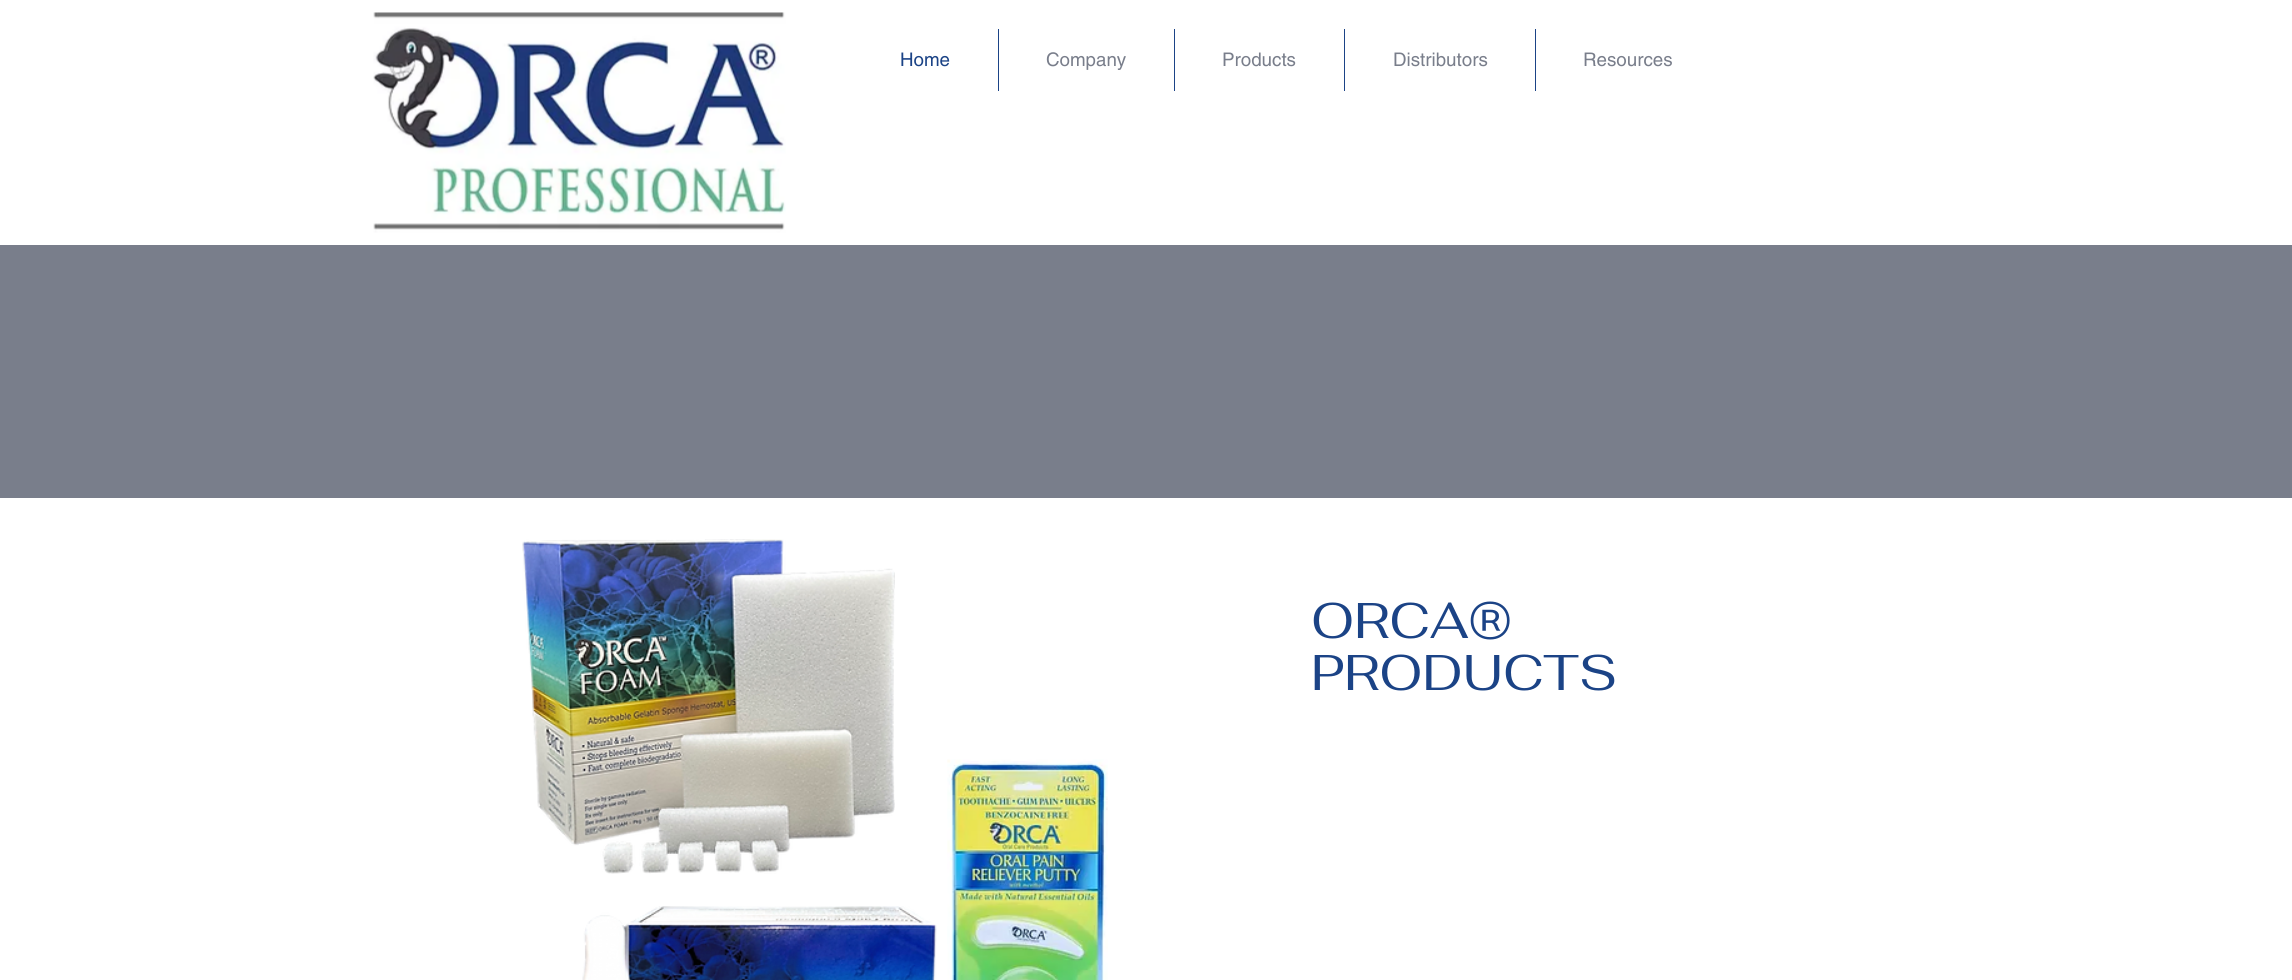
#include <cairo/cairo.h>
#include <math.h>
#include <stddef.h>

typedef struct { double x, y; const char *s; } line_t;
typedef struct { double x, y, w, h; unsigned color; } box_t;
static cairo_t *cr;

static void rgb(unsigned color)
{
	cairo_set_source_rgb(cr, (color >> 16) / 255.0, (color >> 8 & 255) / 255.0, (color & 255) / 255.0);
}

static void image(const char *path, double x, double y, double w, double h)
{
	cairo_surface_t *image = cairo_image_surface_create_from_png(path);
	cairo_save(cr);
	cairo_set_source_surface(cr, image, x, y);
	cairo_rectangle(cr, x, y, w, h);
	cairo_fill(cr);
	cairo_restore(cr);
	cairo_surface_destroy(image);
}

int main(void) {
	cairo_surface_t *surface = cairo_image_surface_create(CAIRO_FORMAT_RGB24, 2292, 980);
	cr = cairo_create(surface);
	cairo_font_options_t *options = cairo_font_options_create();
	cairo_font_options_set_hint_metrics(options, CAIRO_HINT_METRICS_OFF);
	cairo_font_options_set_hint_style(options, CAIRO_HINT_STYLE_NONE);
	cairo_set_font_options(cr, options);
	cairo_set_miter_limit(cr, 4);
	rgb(0xffffff);
	cairo_paint(cr);
	image("img/1.png", 373, 12, 413, 221);
	{
		static const box_t items[] = {
			{998, 29, 1, 62, 0x1b4386},
			{1174, 29, 1, 62, 0x1b4386},
			{1344, 29, 1, 62, 0x1b4386},
			{1535, 29, 1, 62, 0x1b4386},
			{0, 245, 2292, 253, 0x797e8b},
		};
		for (size_t i = 0; i < sizeof items / sizeof *items; i++) {
			rgb(items[i].color);
			cairo_rectangle(cr, items[i].x, items[i].y, items[i].w, items[i].h);
			cairo_fill(cr);
		}
	}
	image("img/2.png", 522, 539, 373, 335);
	image("img/3.png", 582, 906, 355, 74);
	image("img/4.png", 947, 759, 161, 221);
	cairo_select_font_face(cr, "helvetica", CAIRO_FONT_SLANT_NORMAL, CAIRO_FONT_WEIGHT_NORMAL);
	cairo_set_font_size(cr, 18.75);
	rgb(0x1b4386);
	cairo_move_to(cr, 900, 66);
	cairo_show_text(cr, "Home");
	rgb(0x797e8b);
	{
		static const line_t items[] = {
			{1046, 66, "Company"},
			{1222, 66, "Products"},
			{1393, 66, "Distributors"},
			{1583, 66, "Resources"},
		};
		for (size_t i = 0; i < sizeof items / sizeof *items; i++) {
			cairo_move_to(cr, items[i].x, items[i].y);
			cairo_show_text(cr, items[i].s);
		}
	}
	cairo_select_font_face(cr, "Fahkwang", CAIRO_FONT_SLANT_NORMAL, CAIRO_FONT_WEIGHT_NORMAL);
	cairo_set_font_size(cr, 50);
	rgb(0x1b4386);
	cairo_move_to(cr, 1311, 638);
	cairo_show_text(cr, "ORCA®");
	cairo_move_to(cr, 1311, 690);
	cairo_show_text(cr, "PRODUCTS");
	cairo_surface_write_to_png(surface, "page.png");
	cairo_font_options_destroy(options);
	cairo_destroy(cr);
	cairo_surface_destroy(surface);
	return 0;
}
